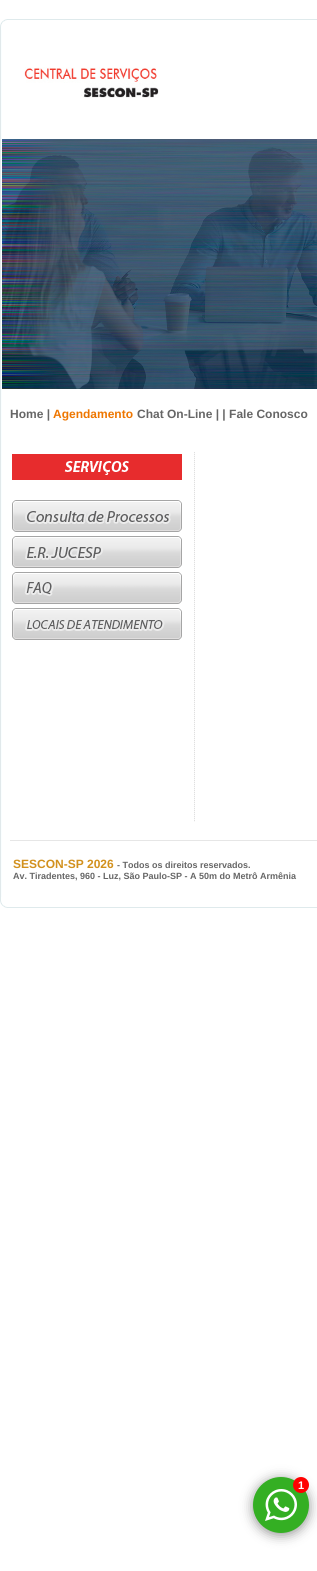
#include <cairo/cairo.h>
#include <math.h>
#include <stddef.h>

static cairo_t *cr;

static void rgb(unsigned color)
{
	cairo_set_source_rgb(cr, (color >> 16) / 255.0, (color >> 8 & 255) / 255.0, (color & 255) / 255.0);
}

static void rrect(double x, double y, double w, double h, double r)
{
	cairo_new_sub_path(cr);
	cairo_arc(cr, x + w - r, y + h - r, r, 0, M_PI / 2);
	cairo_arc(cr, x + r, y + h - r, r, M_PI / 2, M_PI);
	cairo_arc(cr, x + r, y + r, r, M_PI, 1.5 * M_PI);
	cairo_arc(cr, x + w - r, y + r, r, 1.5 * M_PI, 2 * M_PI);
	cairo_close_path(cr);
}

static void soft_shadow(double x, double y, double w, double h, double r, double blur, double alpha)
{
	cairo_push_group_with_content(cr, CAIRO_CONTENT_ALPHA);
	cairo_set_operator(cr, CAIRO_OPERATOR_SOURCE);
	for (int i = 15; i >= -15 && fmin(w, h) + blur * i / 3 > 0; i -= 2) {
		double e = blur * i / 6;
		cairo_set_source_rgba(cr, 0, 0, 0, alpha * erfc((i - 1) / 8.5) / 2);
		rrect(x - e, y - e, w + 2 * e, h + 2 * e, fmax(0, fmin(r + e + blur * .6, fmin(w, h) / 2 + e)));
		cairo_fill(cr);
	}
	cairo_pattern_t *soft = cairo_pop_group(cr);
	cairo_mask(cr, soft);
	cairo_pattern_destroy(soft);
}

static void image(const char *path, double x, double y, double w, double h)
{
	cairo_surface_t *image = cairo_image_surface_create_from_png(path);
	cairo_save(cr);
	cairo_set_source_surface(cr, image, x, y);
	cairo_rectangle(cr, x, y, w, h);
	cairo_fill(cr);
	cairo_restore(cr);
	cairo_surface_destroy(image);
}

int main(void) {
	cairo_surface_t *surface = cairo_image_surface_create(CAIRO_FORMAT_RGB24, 317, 1571);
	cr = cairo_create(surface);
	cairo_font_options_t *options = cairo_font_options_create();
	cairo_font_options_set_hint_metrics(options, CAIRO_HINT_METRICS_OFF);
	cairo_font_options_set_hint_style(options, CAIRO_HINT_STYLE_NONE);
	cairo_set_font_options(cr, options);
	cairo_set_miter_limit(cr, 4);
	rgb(0xffffff);
	cairo_paint(cr);
	image("img/1.png", 0, 19, 317, 11);
	image("img/2.png", 0, 30, 2, 18);
	image("img/3.png", 0, 48, 2, 68);
	image("img/4.png", 24, 67, 135, 31);
	image("img/2.png", 0, 116, 2, 18);
	image("img/5.png", 0, 134, 2, 260);
	image("img/6.png", 2, 139, 315, 250);
	image("img/7.png", 0, 394, 2, 40);
	image("img/8.png", 0, 434, 2, 388);
	image("img/9.png", 194, 452, 1, 370);
	image("img/10.png", 12, 454, 170, 26);
	image("img/11.png", 12, 500, 170, 32);
	image("img/12.png", 12, 536, 170, 32);
	image("img/13.png", 12, 572, 170, 32);
	image("img/14.png", 12, 608, 170, 32);
	image("img/2.png", 0, 822, 2, 18);
	image("img/15.png", 0, 840, 2, 1);
	rgb(0xe6e6e6);
	cairo_rectangle(cr, 10, 840, 307, 1);
	cairo_fill(cr);
	image("img/16.png", 0, 841, 2, 56);
	image("img/17.png", 0, 897, 317, 11);
	rgb(0x000000);
	soft_shadow(253, 1479, 56, 56, 28, 6, 0.43);
	rgb(0x34af23);
	cairo_arc(cr, 281, 1505, 28, 0, 2 * M_PI);
	cairo_fill(cr);
	image("img/18.png", 265, 1489, 32, 32);
	rgb(0xff0000);
	cairo_arc(cr, 301, 1485, 8, 0, 2 * M_PI);
	cairo_fill(cr);
	cairo_select_font_face(cr, "Liberation Sans", CAIRO_FONT_SLANT_NORMAL, CAIRO_FONT_WEIGHT_BOLD);
	cairo_set_font_size(cr, 12);
	rgb(0x666666);
	cairo_move_to(cr, 10, 418);
	cairo_show_text(cr, "Home |");
	rgb(0xee7600);
	cairo_move_to(cr, 53, 418);
	cairo_show_text(cr, "Agendamento");
	rgb(0x666666);
	cairo_move_to(cr, 137, 418);
	cairo_show_text(cr, "Chat On-Line | | Fale Conosco");
	rgb(0xd2911e);
	cairo_move_to(cr, 13, 868);
	cairo_show_text(cr, "SESCON-SP 2026");
	cairo_set_font_size(cr, 9);
	rgb(0x666666);
	cairo_move_to(cr, 117, 868);
	cairo_show_text(cr, "- Todos os direitos reservados.");
	cairo_move_to(cr, 13, 879);
	cairo_show_text(cr, "Av. Tiradentes, 960 - Luz, São Paulo-SP - A 50m do Metrô Armênia");
	cairo_set_font_size(cr, 11);
	rgb(0xffffff);
	cairo_move_to(cr, 298, 1489);
	cairo_show_text(cr, "1");
	cairo_surface_write_to_png(surface, "page.png");
	cairo_font_options_destroy(options);
	cairo_destroy(cr);
	cairo_surface_destroy(surface);
	return 0;
}
